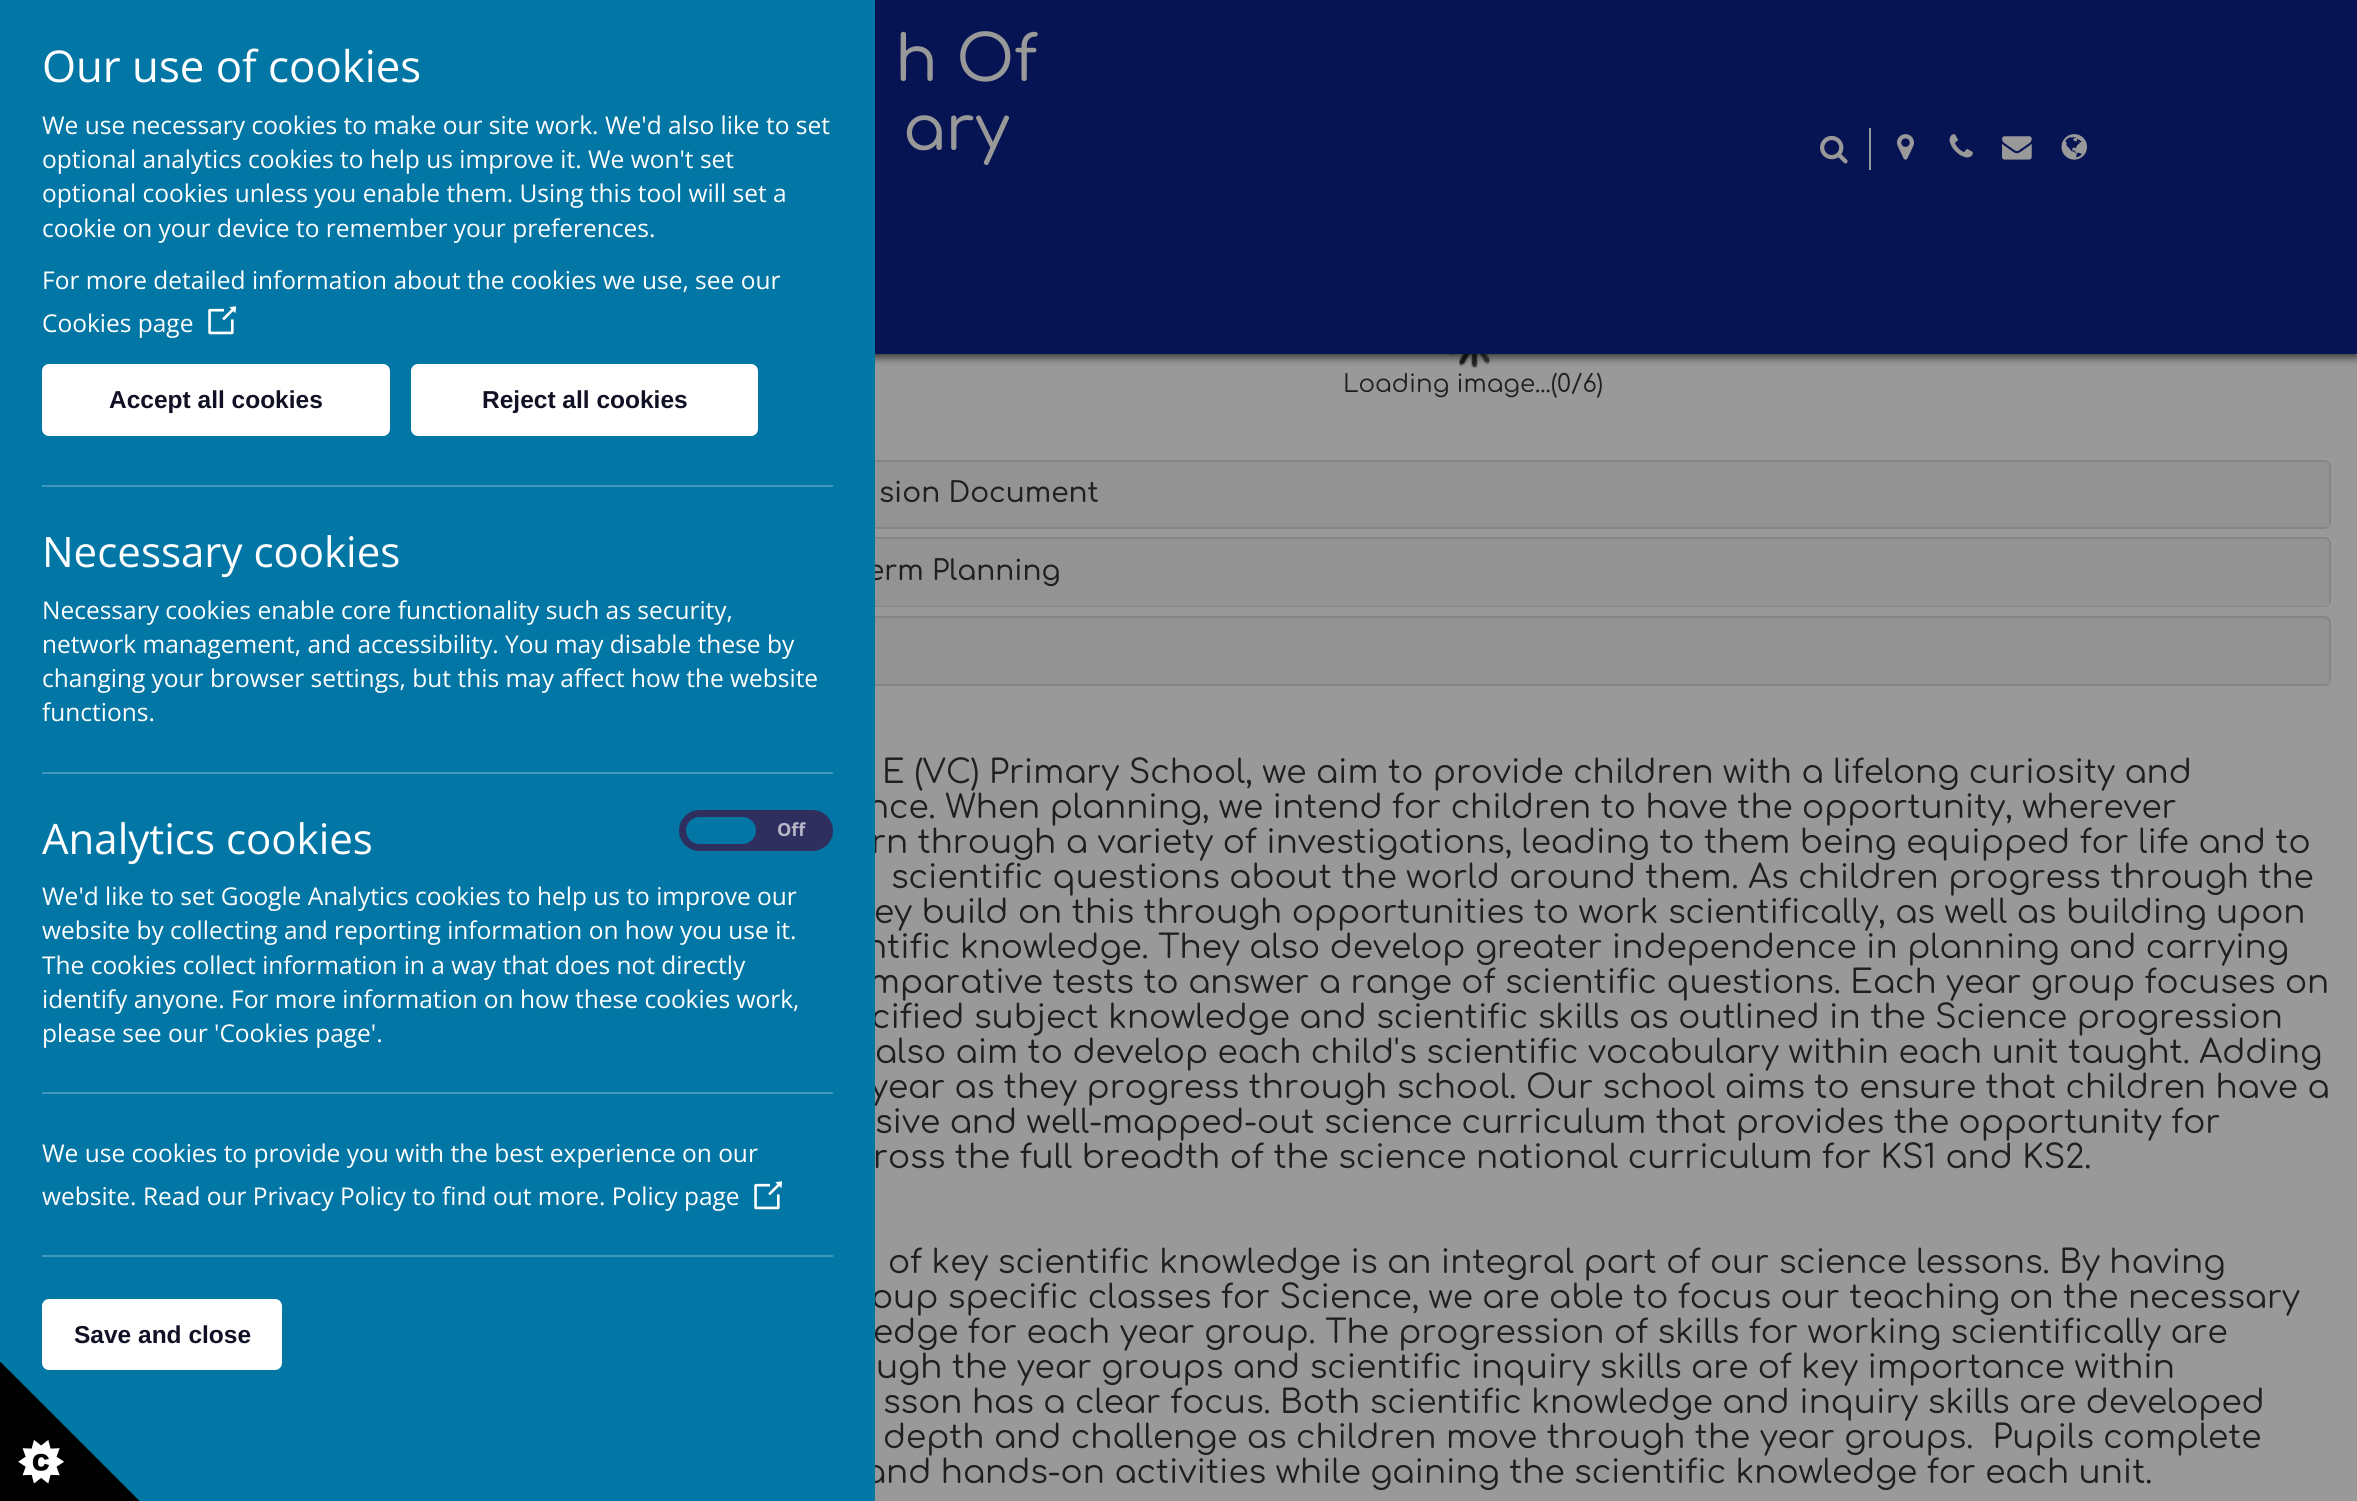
#include <cairo/cairo.h>
#include <math.h>
#include <stddef.h>

typedef struct { double x, y; const char *s; } line_t;
static cairo_t *cr;

static void rgb(unsigned color)
{
	cairo_set_source_rgb(cr, (color >> 16) / 255.0, (color >> 8 & 255) / 255.0, (color & 255) / 255.0);
}

static void rrect(double x, double y, double w, double h, double r)
{
	cairo_new_sub_path(cr);
	cairo_arc(cr, x + w - r, y + h - r, r, 0, M_PI / 2);
	cairo_arc(cr, x + r, y + h - r, r, M_PI / 2, M_PI);
	cairo_arc(cr, x + r, y + r, r, M_PI, 1.5 * M_PI);
	cairo_arc(cr, x + w - r, y + r, r, 1.5 * M_PI, 2 * M_PI);
	cairo_close_path(cr);
}

static void soft_shadow(double x, double y, double w, double h, double r, double blur, double alpha)
{
	cairo_push_group_with_content(cr, CAIRO_CONTENT_ALPHA);
	cairo_set_operator(cr, CAIRO_OPERATOR_SOURCE);
	for (int i = 15; i >= -15 && fmin(w, h) + blur * i / 3 > 0; i -= 2) {
		double e = blur * i / 6;
		cairo_set_source_rgba(cr, 0, 0, 0, alpha * erfc((i - 1) / 8.5) / 2);
		rrect(x - e, y - e, w + 2 * e, h + 2 * e, fmax(0, fmin(r + e + blur * .6, fmin(w, h) / 2 + e)));
		cairo_fill(cr);
	}
	cairo_pattern_t *soft = cairo_pop_group(cr);
	cairo_mask(cr, soft);
	cairo_pattern_destroy(soft);
}

static void image(const char *path, double x, double y, double w, double h)
{
	cairo_surface_t *image = cairo_image_surface_create_from_png(path);
	cairo_save(cr);
	cairo_set_source_surface(cr, image, x, y);
	cairo_rectangle(cr, x, y, w, h);
	cairo_fill(cr);
	cairo_restore(cr);
	cairo_surface_destroy(image);
}

int main(void) {
	cairo_surface_t *surface = cairo_image_surface_create(CAIRO_FORMAT_RGB24, 2357, 1501);
	cr = cairo_create(surface);
	cairo_font_options_t *options = cairo_font_options_create();
	cairo_font_options_set_hint_metrics(options, CAIRO_HINT_METRICS_OFF);
	cairo_font_options_set_hint_style(options, CAIRO_HINT_STYLE_NONE);
	cairo_set_font_options(cr, options);
	cairo_set_miter_limit(cr, 4);
	rgb(0x999999);
	cairo_paint(cr);
	image("img/8.png", 1448, 354, 44, 14);
	rgb(0x000000);
	soft_shadow(0, 4, 2357, 353, 0, 4.5, 0.7);
	rgb(0x071453);
	cairo_rectangle(cr, 875, 0, 1482, 354);
	cairo_fill(cr);
	rgb(0x999999);
	cairo_rectangle(cr, 1869, 128, 2, 42);
	cairo_fill(cr);
	image("img/3.png", 1820, 135, 28, 29);
	image("img/4.png", 1897, 134, 17, 26);
	image("img/5.png", 1949, 134, 24, 24);
	image("img/6.png", 2002, 136, 30, 24);
	image("img/7.png", 2061, 134, 26, 26);
	rrect(617, 461, 1713, 67, 6);
	rgb(0x858585);
	cairo_stroke(cr);
	rgb(0x939393);
	cairo_new_path(cr);
	cairo_move_to(cr, 623, 462);
	cairo_line_to(cr, 2324, 462);
	cairo_curve_to(cr, 2327, 462, 2329, 464, 2329, 467);
	cairo_line_to(cr, 2329, 527);
	cairo_line_to(cr, 618, 527);
	cairo_line_to(cr, 618, 467);
	cairo_curve_to(cr, 618, 464, 620, 462, 623, 462);
	cairo_close_path(cr);
	cairo_fill(cr);
	rrect(617, 538, 1713, 68, 6);
	rgb(0x858585);
	cairo_stroke(cr);
	rgb(0x939393);
	cairo_new_path(cr);
	cairo_move_to(cr, 623, 539);
	cairo_line_to(cr, 2324, 539);
	cairo_curve_to(cr, 2327, 539, 2329, 541, 2329, 544);
	cairo_line_to(cr, 2329, 606);
	cairo_line_to(cr, 618, 606);
	cairo_line_to(cr, 618, 544);
	cairo_curve_to(cr, 618, 541, 620, 539, 623, 539);
	cairo_close_path(cr);
	cairo_fill(cr);
	rrect(617, 617, 1713, 68, 6);
	rgb(0x858585);
	cairo_stroke(cr);
	rgb(0x939393);
	cairo_new_path(cr);
	cairo_move_to(cr, 623, 618);
	cairo_line_to(cr, 2324, 618);
	cairo_curve_to(cr, 2327, 618, 2329, 620, 2329, 623);
	cairo_line_to(cr, 2329, 684);
	cairo_line_to(cr, 618, 684);
	cairo_line_to(cr, 618, 623);
	cairo_curve_to(cr, 618, 620, 620, 618, 623, 618);
	cairo_close_path(cr);
	cairo_fill(cr);
	cairo_select_font_face(cr, "Comfortaa Medium", CAIRO_FONT_SLANT_NORMAL, CAIRO_FONT_WEIGHT_NORMAL);
	cairo_set_font_size(cr, 63);
	rgb(0x999999);
	cairo_move_to(cr, 895, 81);
	cairo_show_text(cr, "h Of");
	cairo_move_to(cr, 903, 150);
	cairo_show_text(cr, "ary");
	cairo_select_font_face(cr, "Comfortaa", CAIRO_FONT_SLANT_NORMAL, CAIRO_FONT_WEIGHT_NORMAL);
	cairo_set_font_size(cr, 24.5);
	rgb(0x1f1f1f);
	cairo_move_to(cr, 1343, 392);
	cairo_show_text(cr, "Loading image...(0/6)");
	cairo_select_font_face(cr, "Comfortaa Medium", CAIRO_FONT_SLANT_NORMAL, CAIRO_FONT_WEIGHT_NORMAL);
	cairo_set_font_size(cr, 28);
	cairo_move_to(cr, 879, 502);
	cairo_show_text(cr, "sion Document");
	cairo_move_to(cr, 867, 580);
	cairo_show_text(cr, "erm Planning");
	cairo_select_font_face(cr, "Comfortaa", CAIRO_FONT_SLANT_NORMAL, CAIRO_FONT_WEIGHT_NORMAL);
	cairo_set_font_size(cr, 32.65);
	{
		static const line_t items[] = {
			{882, 783, "E (VC) Primary School, we aim to provide children with a lifelong curiosity and"},
			{867, 818, "nce. When planning, we intend for children to have the opportunity, wherever"},
			{871, 853, "rn through a variety of investigations, leading to them being equipped for life and to"},
			{891, 888, "scientific questions about the world around them. As children progress through the"},
			{874, 923, "ey build on this through opportunities to work scientifically, as well as building upon"},
			{865, 958, "ntific knowledge. They also develop greater independence in planning and carrying"},
			{869, 993, "mparative tests to answer a range of scientific questions. Each year group focuses on"},
			{871, 1028, "cified subject knowledge and scientific skills as outlined in the Science progression"},
			{875, 1063, "also aim to develop each child's scientific vocabulary within each unit taught. Adding"},
			{870, 1098, "year as they progress through school. Our school aims to ensure that children have a"},
			{875, 1133, "sive and well-mapped-out science curriculum that provides the opportunity for"},
			{873, 1168, "ross the full breadth of the science national curriculum for KS1 and KS2."},
			{888, 1273, "of key scientific knowledge is an integral part of our science lessons. By having"},
			{871, 1308, "oup specific classes for Science, we are able to focus our teaching on the necessary"},
			{873, 1343, "edge for each year group. The progression of skills for working scientifically are"},
			{876, 1378, "ugh the year groups and scientific inquiry skills are of key importance within"},
			{883, 1413, "sson has a clear focus. Both scientific knowledge and inquiry skills are developed"},
			{883, 1448, "depth and challenge as children move through the year groups.  Pupils complete"},
			{864, 1483, "and hands-on activities while gaining the scientific knowledge for each unit."},
		};
		for (size_t i = 0; i < sizeof items / sizeof *items; i++) {
			cairo_move_to(cr, items[i].x, items[i].y);
			cairo_show_text(cr, items[i].s);
		}
	}
	rgb(0x0276a5);
	cairo_rectangle(cr, 0, 0, 875, 1501);
	cairo_fill(cr);
	rgb(0xffffff);
	rrect(44, 1301, 236, 67, 5);
	cairo_fill_preserve(cr);
	cairo_set_line_width(cr, 4);
	cairo_stroke(cr);
	image("img/2.png", 0, 1362, 140, 139);
	rgb(0x2f2f5f);
	rrect(682.5, 813.5, 147, 34, 17);
	cairo_fill_preserve(cr);
	cairo_set_line_width(cr, 7);
	cairo_stroke(cr);
	rgb(0x0276a5);
	rrect(686, 817, 70, 27, 13.5);
	cairo_fill(cr);
	cairo_select_font_face(cr, "Open Sans", CAIRO_FONT_SLANT_NORMAL, CAIRO_FONT_WEIGHT_BOLD);
	cairo_set_font_size(cr, 18);
	rgb(0xb6b6c7);
	cairo_move_to(cr, 777, 836);
	cairo_show_text(cr, "Off");
	rgb(0x4198bc);
	cairo_rectangle(cr, 42, 1255, 791, 2);
	cairo_fill(cr);
	image("img/1.png", 754, 1181, 28, 29);
	cairo_rectangle(cr, 42, 1092, 791, 2);
	cairo_fill(cr);
	cairo_select_font_face(cr, "Open Sans", CAIRO_FONT_SLANT_NORMAL, CAIRO_FONT_WEIGHT_NORMAL);
	cairo_set_font_size(cr, 24.5);
	rgb(0xffffff);
	{
		static const line_t items[] = {
			{42, 1205, "website. Read our Privacy Policy to find out more. Policy page"},
			{42, 1162, "We use cookies to provide you with the best experience on our"},
			{42, 1042, "please see our 'Cookies page'."},
			{42, 1008, "identify anyone. For more information on how these cookies work,"},
			{42, 974, "The cookies collect information in a way that does not directly"},
			{42, 939, "website by collecting and reporting information on how you use it."},
			{42, 905, "We'd like to set Google Analytics cookies to help us to improve our"},
		};
		for (size_t i = 0; i < sizeof items / sizeof *items; i++) {
			cairo_move_to(cr, items[i].x, items[i].y);
			cairo_show_text(cr, items[i].s);
		}
	}
	cairo_set_font_size(cr, 42);
	cairo_move_to(cr, 42, 854);
	cairo_show_text(cr, "Analytics cookies");
	rgb(0x4198bc);
	cairo_rectangle(cr, 42, 772, 791, 2);
	cairo_fill(cr);
	cairo_rectangle(cr, 42, 485, 791, 2);
	cairo_fill(cr);
	image("img/1.png", 208, 306, 28, 29);
	cairo_select_font_face(cr, "Liberation Sans", CAIRO_FONT_SLANT_NORMAL, CAIRO_FONT_WEIGHT_BOLD);
	cairo_set_font_size(cr, 24.5);
	rgb(0x111125);
	cairo_move_to(cr, 74, 1343);
	cairo_show_text(cr, "Save and close");
	cairo_select_font_face(cr, "Open Sans", CAIRO_FONT_SLANT_NORMAL, CAIRO_FONT_WEIGHT_NORMAL);
	rgb(0xffffff);
	{
		static const line_t items[] = {
			{42, 721, "functions."},
			{42, 687, "changing your browser settings, but this may affect how the website"},
			{42, 653, "network management, and accessibility. You may disable these by"},
			{42, 619, "Necessary cookies enable core functionality such as security,"},
		};
		for (size_t i = 0; i < sizeof items / sizeof *items; i++) {
			cairo_move_to(cr, items[i].x, items[i].y);
			cairo_show_text(cr, items[i].s);
		}
	}
	cairo_set_font_size(cr, 42);
	cairo_move_to(cr, 42, 567);
	cairo_show_text(cr, "Necessary cookies");
	rrect(413, 366, 343, 68, 5);
	cairo_fill_preserve(cr);
	cairo_set_line_width(cr, 4);
	cairo_stroke(cr);
	cairo_select_font_face(cr, "Liberation Sans", CAIRO_FONT_SLANT_NORMAL, CAIRO_FONT_WEIGHT_BOLD);
	cairo_set_font_size(cr, 24.5);
	rgb(0x111125);
	cairo_move_to(cr, 482, 408);
	cairo_show_text(cr, "Reject all cookies");
	rgb(0xffffff);
	rrect(44, 366, 344, 68, 5);
	cairo_fill_preserve(cr);
	cairo_stroke(cr);
	rgb(0x111125);
	cairo_move_to(cr, 109, 408);
	cairo_show_text(cr, "Accept all cookies");
	cairo_select_font_face(cr, "Open Sans", CAIRO_FONT_SLANT_NORMAL, CAIRO_FONT_WEIGHT_NORMAL);
	rgb(0xffffff);
	{
		static const line_t items[] = {
			{42, 332, "Cookies page"},
			{42, 289, "For more detailed information about the cookies we use, see our"},
			{42, 237, "cookie on your device to remember your preferences."},
			{42, 202, "optional cookies unless you enable them. Using this tool will set a"},
			{42, 168, "optional analytics cookies to help us improve it. We won't set"},
			{42, 134, "We use necessary cookies to make our site work. We'd also like to set"},
		};
		for (size_t i = 0; i < sizeof items / sizeof *items; i++) {
			cairo_move_to(cr, items[i].x, items[i].y);
			cairo_show_text(cr, items[i].s);
		}
	}
	cairo_set_font_size(cr, 43.75);
	cairo_move_to(cr, 42, 82);
	cairo_show_text(cr, "Our use of cookies");
	cairo_surface_write_to_png(surface, "page.png");
	cairo_font_options_destroy(options);
	cairo_destroy(cr);
	cairo_surface_destroy(surface);
	return 0;
}
